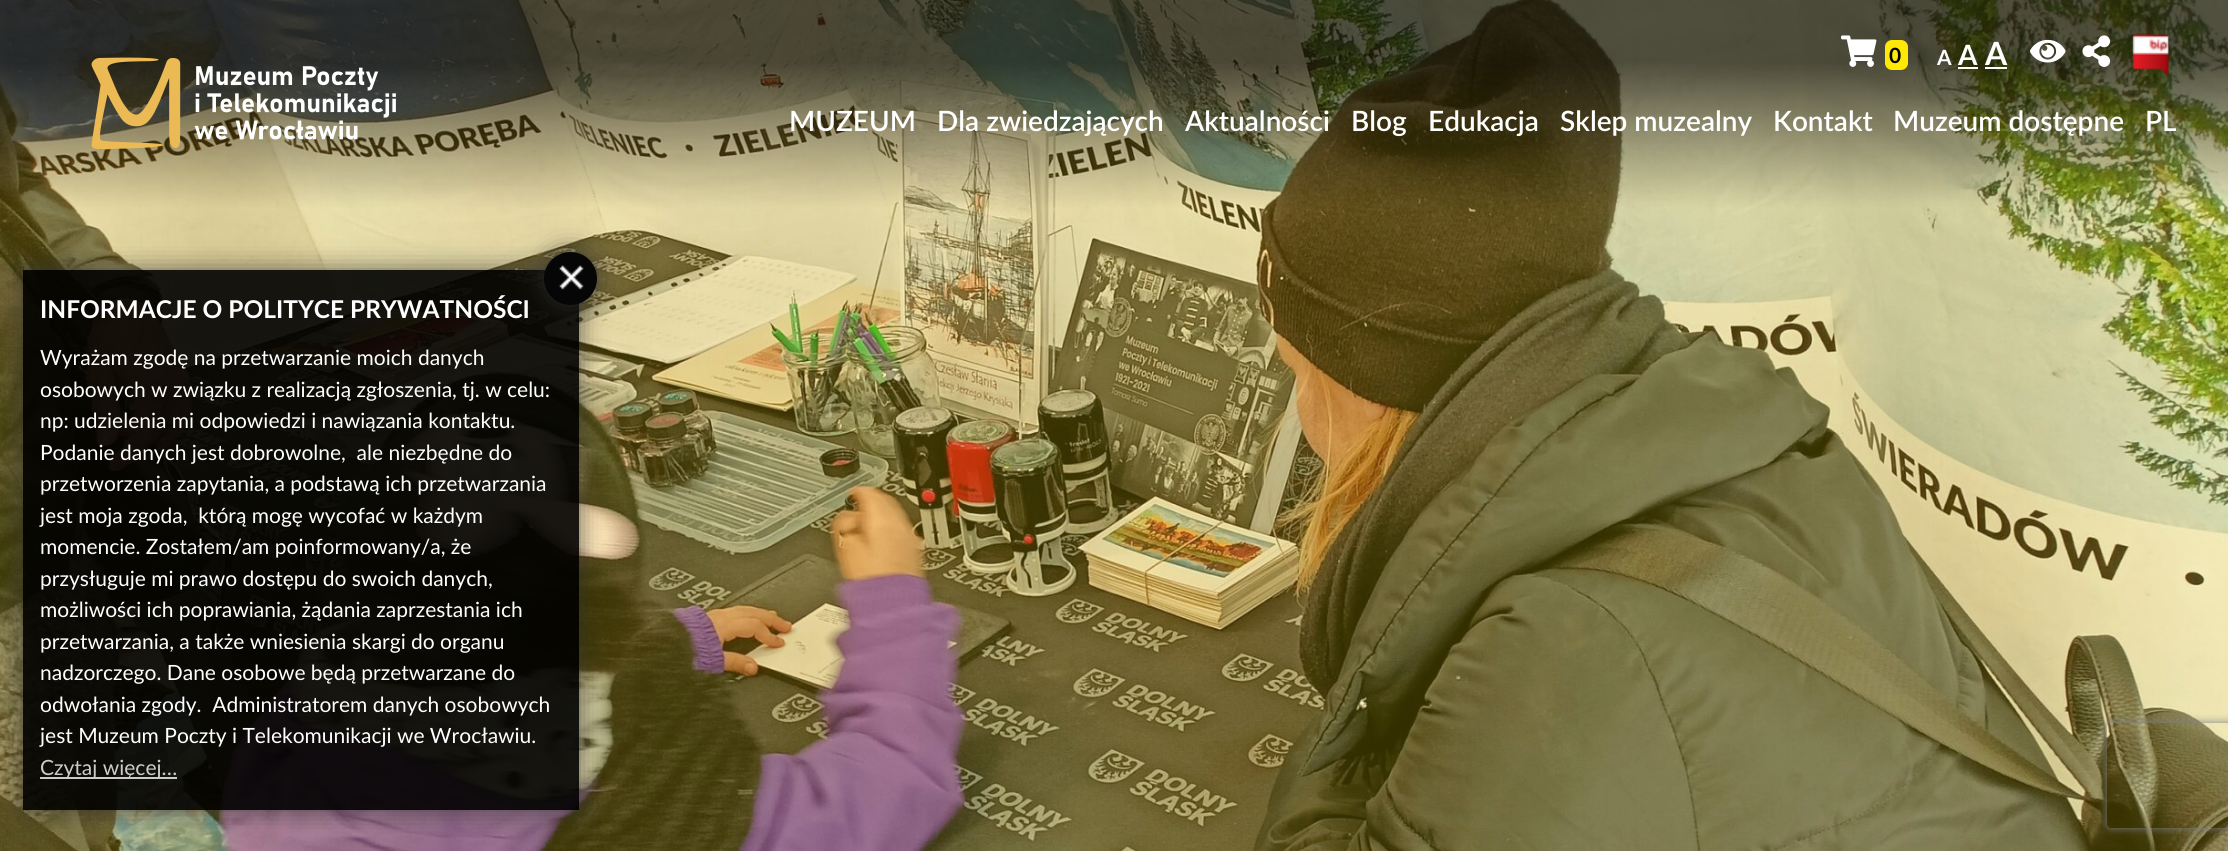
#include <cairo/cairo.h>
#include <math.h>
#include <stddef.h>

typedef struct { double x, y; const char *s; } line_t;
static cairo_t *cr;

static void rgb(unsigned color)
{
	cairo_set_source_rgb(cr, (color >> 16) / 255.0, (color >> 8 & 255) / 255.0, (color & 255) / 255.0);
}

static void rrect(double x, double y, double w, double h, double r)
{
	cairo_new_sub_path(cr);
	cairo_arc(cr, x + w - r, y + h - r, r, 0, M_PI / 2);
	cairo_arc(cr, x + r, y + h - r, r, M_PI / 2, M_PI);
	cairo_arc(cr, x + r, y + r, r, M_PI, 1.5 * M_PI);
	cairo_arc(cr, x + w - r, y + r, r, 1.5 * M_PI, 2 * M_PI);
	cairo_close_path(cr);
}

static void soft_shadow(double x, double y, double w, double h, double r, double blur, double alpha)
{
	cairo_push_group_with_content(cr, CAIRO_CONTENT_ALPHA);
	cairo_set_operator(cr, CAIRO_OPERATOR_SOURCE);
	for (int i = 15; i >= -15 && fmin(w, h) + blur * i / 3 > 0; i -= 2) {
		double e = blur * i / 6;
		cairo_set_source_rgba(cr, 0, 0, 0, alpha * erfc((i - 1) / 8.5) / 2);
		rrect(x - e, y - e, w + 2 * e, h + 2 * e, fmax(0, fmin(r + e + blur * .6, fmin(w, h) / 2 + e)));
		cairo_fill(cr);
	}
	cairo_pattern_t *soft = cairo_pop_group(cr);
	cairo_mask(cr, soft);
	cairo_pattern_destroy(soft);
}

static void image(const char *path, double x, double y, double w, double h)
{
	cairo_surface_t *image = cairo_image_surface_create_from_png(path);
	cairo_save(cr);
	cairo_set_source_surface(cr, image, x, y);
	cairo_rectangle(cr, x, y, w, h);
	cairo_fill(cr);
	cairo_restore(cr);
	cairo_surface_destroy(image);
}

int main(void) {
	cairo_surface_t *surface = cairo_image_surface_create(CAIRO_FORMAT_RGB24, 2228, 851);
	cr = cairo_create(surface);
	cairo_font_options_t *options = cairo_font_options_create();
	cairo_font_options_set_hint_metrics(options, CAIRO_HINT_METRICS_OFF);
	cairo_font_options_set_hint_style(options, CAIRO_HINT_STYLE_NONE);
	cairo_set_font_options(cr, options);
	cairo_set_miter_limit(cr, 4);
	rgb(0xffffff);
	cairo_paint(cr);
	image("img/1.png", 0, 0, 2228, 851);
	image("img/2.png", 91, 57, 305, 92);
	image("img/3.png", 1841, 35, 36, 32);
	rgb(0xffe706);
	rrect(1885, 40, 23, 30, 7);
	cairo_fill(cr);
	rgb(0xffffff);
	cairo_rectangle(cr, 1958, 67, 20, 2);
	cairo_fill(cr);
	cairo_rectangle(cr, 1985, 67, 22, 2);
	cairo_fill(cr);
	image("img/4.png", 2030, 39, 36, 24);
	image("img/5.png", 2082, 35, 29, 32);
	image("img/6.png", 2132, 34, 37, 42);
	cairo_save(cr);
	cairo_set_fill_rule(cr, CAIRO_FILL_RULE_EVEN_ODD);
	cairo_new_path(cr);
	cairo_move_to(cr, 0, 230);
	cairo_line_to(cr, 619, 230);
	cairo_line_to(cr, 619, 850);
	cairo_line_to(cr, 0, 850);
	cairo_close_path(cr);
	cairo_move_to(cr, 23, 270);
	cairo_line_to(cr, 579, 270);
	cairo_line_to(cr, 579, 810);
	cairo_line_to(cr, 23, 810);
	cairo_close_path(cr);
	cairo_clip(cr);
	rgb(0x323232);
	soft_shadow(23, 270, 556, 540, 0, 13, 0.75);
	cairo_restore(cr);
	cairo_set_source_rgba(cr, 0, 0, 0, 0.9);
	cairo_rectangle(cr, 23, 270, 556, 540);
	cairo_fill(cr);
	rgb(0x323232);
	soft_shadow(544, 252, 53, 53, 26.5, 13, 0.75);
	rgb(0x060606);
	cairo_arc(cr, 570.5, 278.5, 26.5, 0, 2 * M_PI);
	cairo_fill(cr);
	image("img/7.png", 559, 265, 25, 25);
	rgb(0xcccccc);
	cairo_rectangle(cr, 40, 777, 137, 2);
	cairo_fill(cr);
	cairo_save(cr);
	cairo_set_fill_rule(cr, CAIRO_FILL_RULE_EVEN_ODD);
	cairo_new_path(cr);
	cairo_move_to(cr, 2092, 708);
	cairo_line_to(cr, 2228, 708);
	cairo_line_to(cr, 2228, 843);
	cairo_line_to(cr, 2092, 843);
	cairo_close_path(cr);
	cairo_move_to(cr, 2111, 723);
	cairo_line_to(cr, 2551, 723);
	cairo_curve_to(cr, 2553, 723, 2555, 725, 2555, 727);
	cairo_line_to(cr, 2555, 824);
	cairo_curve_to(cr, 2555, 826, 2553, 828, 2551, 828);
	cairo_line_to(cr, 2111, 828);
	cairo_curve_to(cr, 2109, 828, 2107, 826, 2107, 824);
	cairo_line_to(cr, 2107, 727);
	cairo_curve_to(cr, 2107, 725, 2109, 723, 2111, 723);
	cairo_close_path(cr);
	cairo_clip(cr);
	rgb(0x808080);
	soft_shadow(2107, 723, 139, 105, 4, 4.5, 1);
	cairo_restore(cr);
	cairo_select_font_face(cr, "Lato", CAIRO_FONT_SLANT_NORMAL, CAIRO_FONT_WEIGHT_BOLD);
	cairo_set_font_size(cr, 21);
	rgb(0x000000);
	cairo_move_to(cr, 1889, 63);
	cairo_show_text(cr, "0");
	rgb(0xffffff);
	cairo_move_to(cr, 1937, 65);
	cairo_show_text(cr, "A");
	cairo_set_font_size(cr, 28);
	cairo_move_to(cr, 1958, 65);
	cairo_show_text(cr, "A");
	cairo_set_font_size(cr, 32);
	cairo_move_to(cr, 1985, 65);
	cairo_show_text(cr, "A");
	cairo_select_font_face(cr, "Lato SemiBold", CAIRO_FONT_SLANT_NORMAL, CAIRO_FONT_WEIGHT_NORMAL);
	cairo_set_font_size(cr, 28);
	{
		static const line_t items[] = {
			{789, 131, "MUZEUM"},
			{937, 131, "Dla zwiedzających"},
			{1185, 131, "Aktualności"},
			{1351, 131, "Blog"},
			{1428, 131, "Edukacja"},
			{1560, 131, "Sklep muzealny"},
			{1773, 131, "Kontakt"},
			{1893, 131, "Muzeum dostępne"},
			{2145, 131, "PL"},
		};
		for (size_t i = 0; i < sizeof items / sizeof *items; i++) {
			cairo_move_to(cr, items[i].x, items[i].y);
			cairo_show_text(cr, items[i].s);
		}
	}
	cairo_select_font_face(cr, "Lato", CAIRO_FONT_SLANT_NORMAL, CAIRO_FONT_WEIGHT_BOLD);
	cairo_set_font_size(cr, 24.5);
	cairo_move_to(cr, 40, 318);
	cairo_show_text(cr, "INFORMACJE O POLITYCE PRYWATNOŚCI");
	cairo_select_font_face(cr, "Lato", CAIRO_FONT_SLANT_NORMAL, CAIRO_FONT_WEIGHT_NORMAL);
	cairo_set_font_size(cr, 21);
	{
		static const line_t items[] = {
			{40, 365, "Wyrażam zgodę na przetwarzanie moich danych"},
			{40, 397, "osobowych w związku z realizacją zgłoszenia, tj. w celu:"},
			{40, 428, "np: udzielenia mi odpowiedzi i nawiązania kontaktu."},
			{40, 460, "Podanie danych jest dobrowolne,  ale niezbędne do"},
			{40, 491, "przetworzenia zapytania, a podstawą ich przetwarzania"},
			{40, 523, "jest moja zgoda,  którą mogę wycofać w każdym"},
			{40, 554, "momencie. Zostałem/am poinformowany/a, że"},
			{40, 586, "przysługuje mi prawo dostępu do swoich danych,"},
			{40, 617, "możliwości ich poprawiania, żądania zaprzestania ich"},
			{40, 649, "przetwarzania, a także wniesienia skargi do organu"},
			{40, 680, "nadzorczego. Dane osobowe będą przetwarzane do"},
			{40, 712, "odwołania zgody.  Administratorem danych osobowych"},
			{40, 743, "jest Muzeum Poczty i Telekomunikacji we Wrocławiu."},
		};
		for (size_t i = 0; i < sizeof items / sizeof *items; i++) {
			cairo_move_to(cr, items[i].x, items[i].y);
			cairo_show_text(cr, items[i].s);
		}
	}
	rgb(0xcccccc);
	cairo_move_to(cr, 40, 775);
	cairo_show_text(cr, "Czytaj więcej…");
	cairo_surface_write_to_png(surface, "page.png");
	cairo_font_options_destroy(options);
	cairo_destroy(cr);
	cairo_surface_destroy(surface);
	return 0;
}
